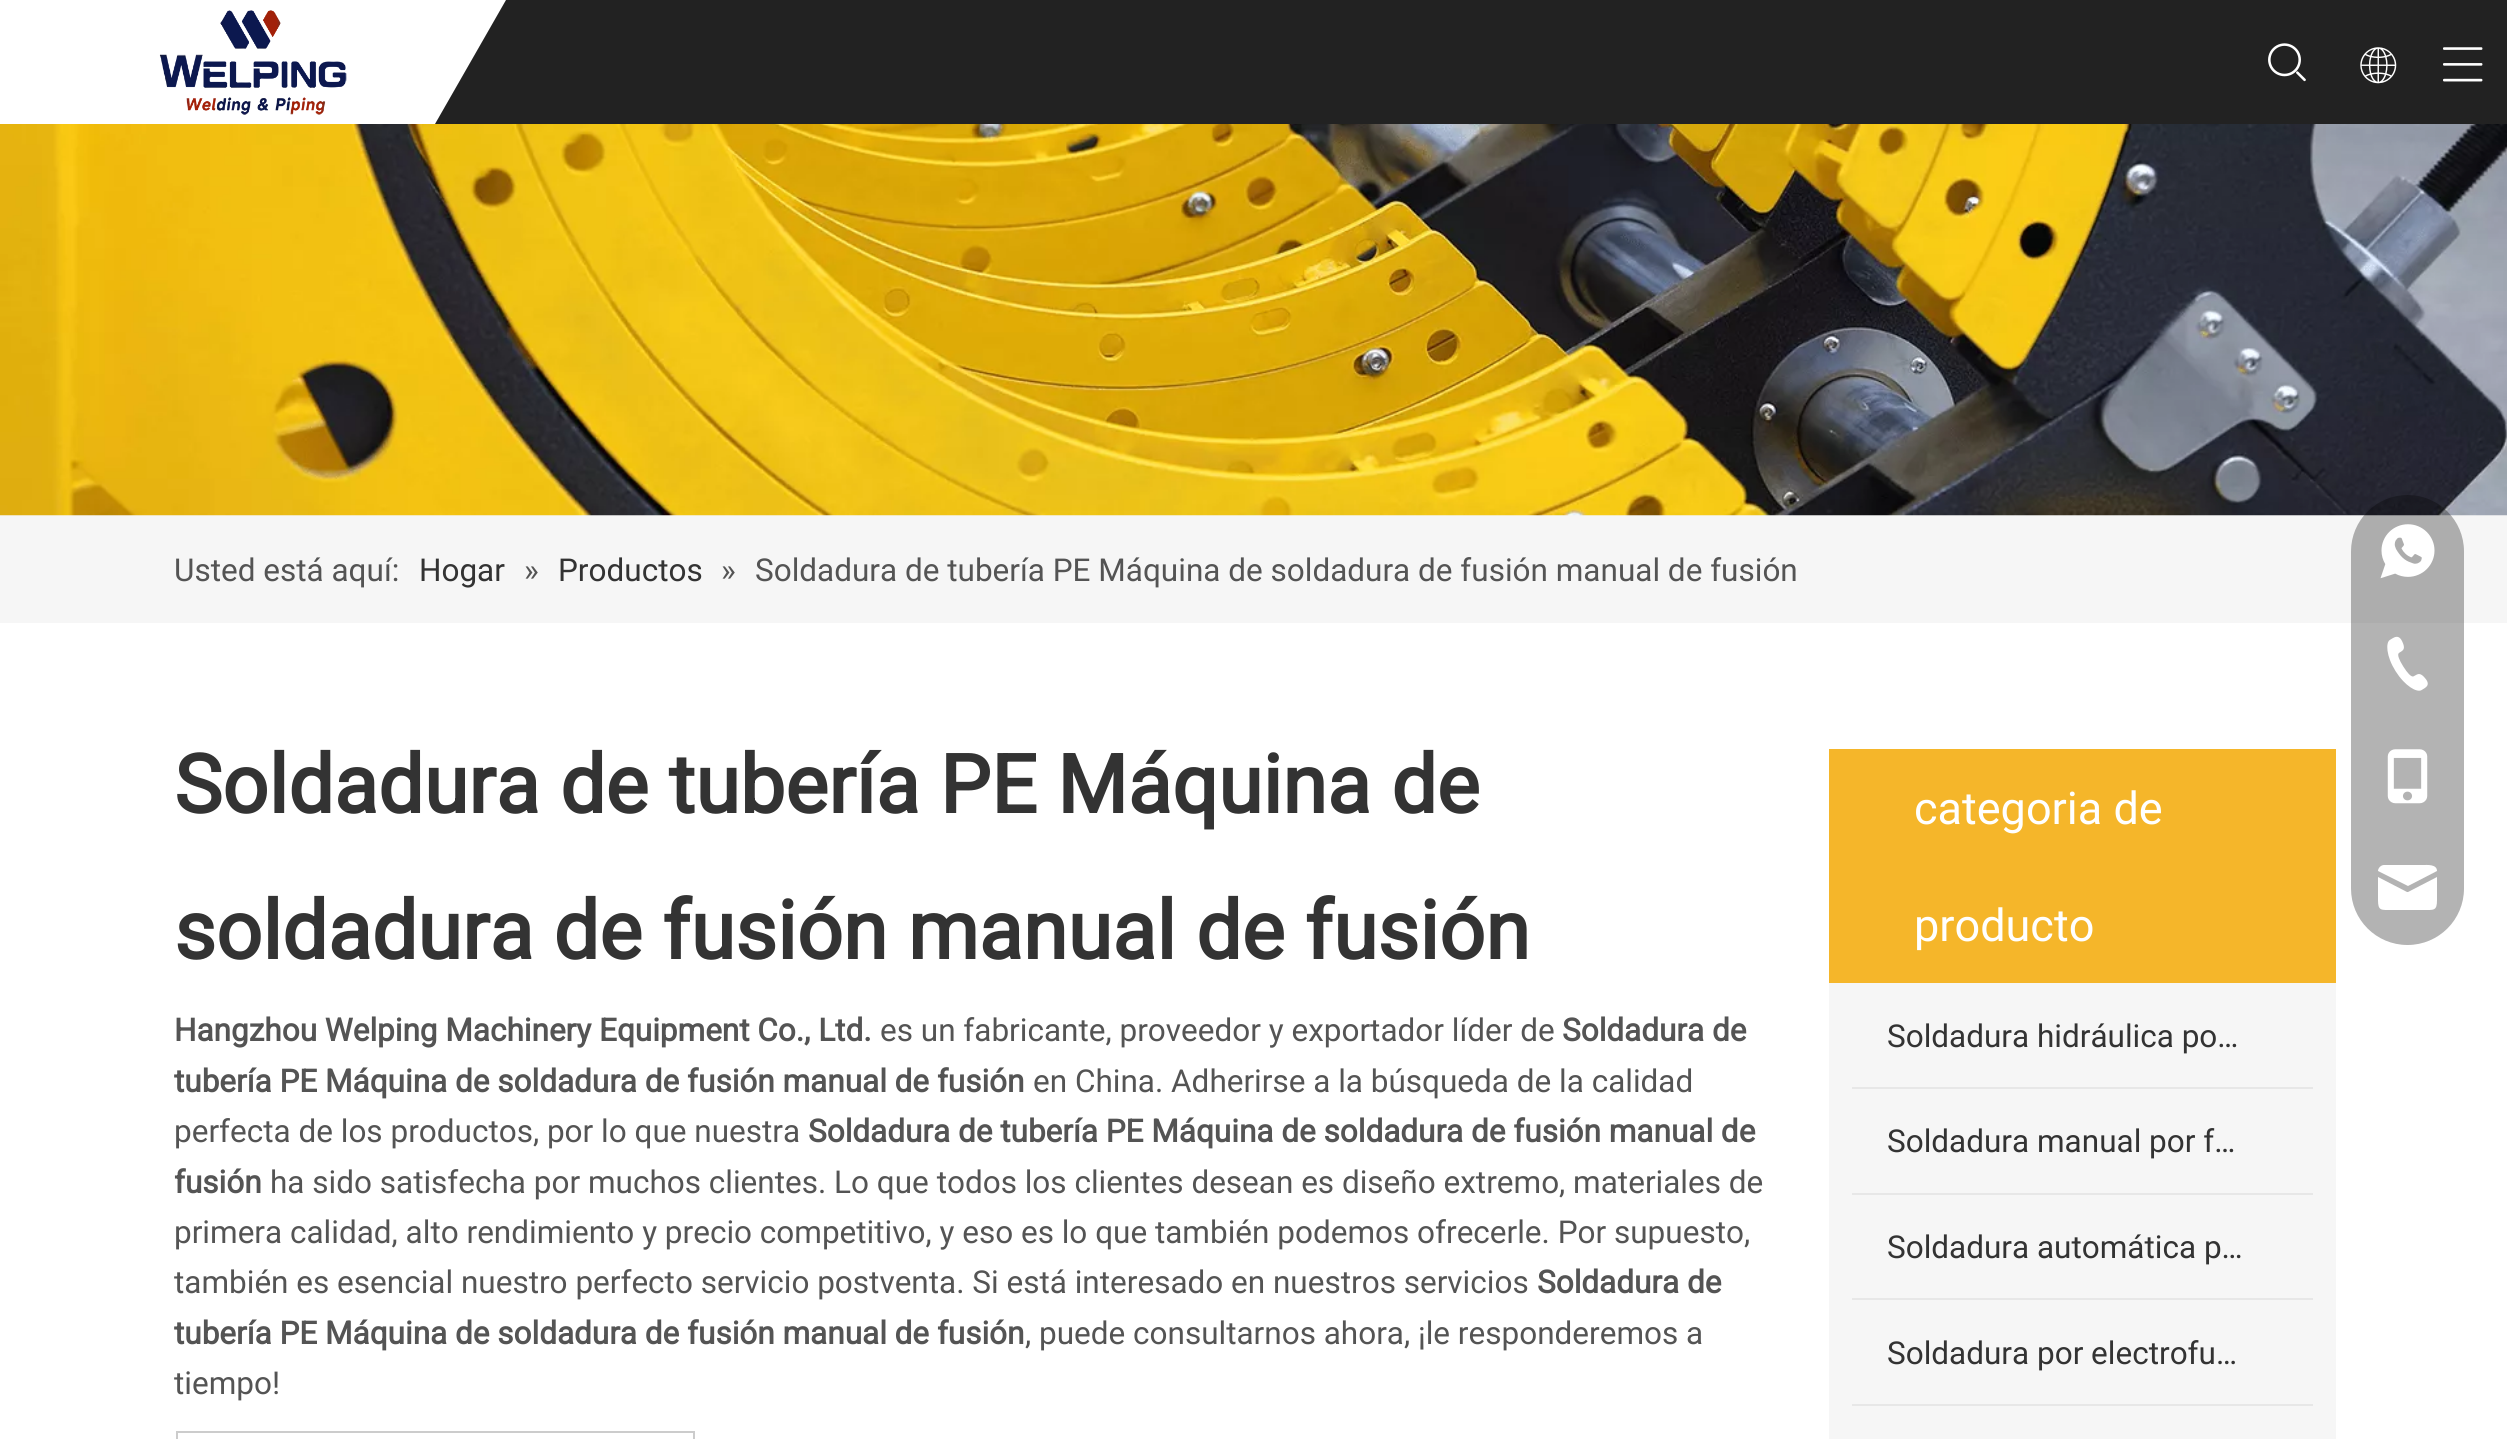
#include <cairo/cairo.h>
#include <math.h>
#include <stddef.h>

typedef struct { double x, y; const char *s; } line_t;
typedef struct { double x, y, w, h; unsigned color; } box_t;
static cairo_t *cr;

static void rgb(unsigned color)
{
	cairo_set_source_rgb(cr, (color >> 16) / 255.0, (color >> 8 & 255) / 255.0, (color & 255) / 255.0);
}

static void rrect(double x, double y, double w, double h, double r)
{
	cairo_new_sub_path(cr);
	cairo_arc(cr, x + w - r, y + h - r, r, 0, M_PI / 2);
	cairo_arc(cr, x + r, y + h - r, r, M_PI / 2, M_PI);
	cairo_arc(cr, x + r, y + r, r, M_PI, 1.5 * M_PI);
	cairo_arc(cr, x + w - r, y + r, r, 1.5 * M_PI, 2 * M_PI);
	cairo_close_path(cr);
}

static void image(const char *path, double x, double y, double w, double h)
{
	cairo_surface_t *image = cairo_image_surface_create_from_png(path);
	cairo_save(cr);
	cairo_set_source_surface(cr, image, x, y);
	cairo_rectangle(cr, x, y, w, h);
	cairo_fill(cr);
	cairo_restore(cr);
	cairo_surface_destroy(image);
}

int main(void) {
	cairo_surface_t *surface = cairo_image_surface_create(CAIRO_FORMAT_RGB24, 2507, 1439);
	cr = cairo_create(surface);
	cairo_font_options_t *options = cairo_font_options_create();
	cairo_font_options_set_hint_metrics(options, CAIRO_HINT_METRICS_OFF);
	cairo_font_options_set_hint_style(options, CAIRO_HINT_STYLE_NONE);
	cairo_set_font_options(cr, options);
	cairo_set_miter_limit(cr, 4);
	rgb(0xffffff);
	cairo_paint(cr);
	rgb(0x222222);
	cairo_rectangle(cr, 435, 0, 2072, 124);
	cairo_fill(cr);
	rgb(0xffffff);
	cairo_new_path(cr);
	cairo_move_to(cr, 0, 0);
	cairo_line_to(cr, 0, 124);
	cairo_line_to(cr, 435, 124);
	cairo_line_to(cr, 506, 0);
	cairo_close_path(cr);
	cairo_fill(cr);
	image("img/1.png", 159, 10, 188, 105);
	image("img/2.png", 2268, 43, 38, 39);
	image("img/3.png", 2360, 47, 37, 37);
	image("img/4.png", 2443, 47, 40, 35);
	rgb(0xf6f6f6);
	cairo_rectangle(cr, 0, 515, 2507, 108);
	cairo_fill(cr);
	image("img/5.png", 0, 124, 2507, 392);
	cairo_rectangle(cr, 177, 1432, 517, 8);
	rgb(0xcccccc);
	cairo_stroke(cr);
	{
		static const box_t items[] = {
			{1829, 983, 507, 456, 0xf6f6f6},
			{1829, 749, 507, 234, 0xf5b62a},
			{1852, 1087, 461, 2, 0xe7e7e7},
			{1852, 1193, 461, 2, 0xe7e7e7},
			{1852, 1298, 461, 2, 0xe7e7e7},
			{1852, 1404, 461, 2, 0xe7e7e7},
		};
		for (size_t i = 0; i < sizeof items / sizeof *items; i++) {
			rgb(items[i].color);
			cairo_rectangle(cr, items[i].x, items[i].y, items[i].w, items[i].h);
			cairo_fill(cr);
		}
	}
	cairo_set_source_rgba(cr, 0, 0, 0, 0.3);
	rrect(2351, 495, 113, 450, 56.5);
	cairo_fill(cr);
	image("img/6.png", 2380, 524, 55, 55);
	image("img/7.png", 2387, 636, 41, 55);
	image("img/8.png", 2387, 749, 41, 55);
	rgb(0xffffff);
	cairo_new_path(cr);
	cairo_move_to(cr, 2384, 865);
	cairo_line_to(cr, 2423, 865);
	cairo_curve_to(cr, 2427, 865, 2437, 864, 2437, 871);
	cairo_line_to(cr, 2408, 886);
	cairo_line_to(cr, 2378, 871);
	cairo_curve_to(cr, 2378, 868, 2381, 865, 2384, 865);
	cairo_close_path(cr);
	cairo_move_to(cr, 2378, 877);
	cairo_line_to(cr, 2378, 900);
	cairo_curve_to(cr, 2378, 911, 2381, 910, 2392, 910);
	cairo_line_to(cr, 2423, 910);
	cairo_curve_to(cr, 2434, 910, 2437, 911, 2437, 900);
	cairo_line_to(cr, 2437, 877);
	cairo_line_to(cr, 2408, 892);
	cairo_line_to(cr, 2407, 892);
	cairo_close_path(cr);
	cairo_fill(cr);
	cairo_select_font_face(cr, "Roboto", CAIRO_FONT_SLANT_NORMAL, CAIRO_FONT_WEIGHT_NORMAL);
	cairo_set_font_size(cr, 31.5);
	rgb(0x545454);
	cairo_move_to(cr, 174, 581);
	cairo_show_text(cr, "Usted está aquí:");
	rgb(0x333333);
	cairo_move_to(cr, 419, 581);
	cairo_show_text(cr, "Hogar");
	rgb(0x545454);
	cairo_move_to(cr, 524, 581);
	cairo_show_text(cr, "»");
	rgb(0x333333);
	cairo_move_to(cr, 558, 581);
	cairo_show_text(cr, "Productos");
	rgb(0x545454);
	cairo_move_to(cr, 721, 581);
	cairo_show_text(cr, "»");
	cairo_move_to(cr, 755, 581);
	cairo_show_text(cr, "Soldadura de tubería PE Máquina de soldadura de fusión manual de fusión");
	cairo_select_font_face(cr, "Roboto", CAIRO_FONT_SLANT_NORMAL, CAIRO_FONT_WEIGHT_BOLD);
	cairo_set_font_size(cr, 81);
	rgb(0x333333);
	cairo_move_to(cr, 174, 813);
	cairo_show_text(cr, "Soldadura de tubería PE Máquina de");
	cairo_move_to(cr, 174, 959);
	cairo_show_text(cr, "soldadura de fusión manual de fusión");
	cairo_set_font_size(cr, 31.5);
	rgb(0x545454);
	cairo_move_to(cr, 174, 1041);
	cairo_show_text(cr, "Hangzhou Welping Machinery Equipment Co., Ltd.");
	cairo_select_font_face(cr, "Roboto", CAIRO_FONT_SLANT_NORMAL, CAIRO_FONT_WEIGHT_NORMAL);
	cairo_move_to(cr, 880, 1041);
	cairo_show_text(cr, "es un fabricante, proveedor y exportador líder de");
	cairo_select_font_face(cr, "Roboto", CAIRO_FONT_SLANT_NORMAL, CAIRO_FONT_WEIGHT_BOLD);
	cairo_move_to(cr, 1562, 1041);
	cairo_show_text(cr, "Soldadura de");
	cairo_move_to(cr, 174, 1092);
	cairo_show_text(cr, "tubería PE Máquina de soldadura de fusión manual de fusión");
	cairo_select_font_face(cr, "Roboto", CAIRO_FONT_SLANT_NORMAL, CAIRO_FONT_WEIGHT_NORMAL);
	cairo_move_to(cr, 1033, 1092);
	cairo_show_text(cr, "en China. Adherirse a la búsqueda de la calidad");
	cairo_move_to(cr, 174, 1142);
	cairo_show_text(cr, "perfecta de los productos, por lo que nuestra");
	cairo_select_font_face(cr, "Roboto", CAIRO_FONT_SLANT_NORMAL, CAIRO_FONT_WEIGHT_BOLD);
	cairo_move_to(cr, 808, 1142);
	cairo_show_text(cr, "Soldadura de tubería PE Máquina de soldadura de fusión manual de");
	cairo_move_to(cr, 174, 1193);
	cairo_show_text(cr, "fusión");
	cairo_select_font_face(cr, "Roboto", CAIRO_FONT_SLANT_NORMAL, CAIRO_FONT_WEIGHT_NORMAL);
	{
		static const line_t items[] = {
			{270, 1193, "ha sido satisfecha por muchos clientes. Lo que todos los clientes desean es diseño extremo, materiales de"},
			{174, 1243, "primera calidad, alto rendimiento y precio competitivo, y eso es lo que también podemos ofrecerle. Por supuesto,"},
			{174, 1293, "también es esencial nuestro perfecto servicio postventa. Si está interesado en nuestros servicios"},
		};
		for (size_t i = 0; i < sizeof items / sizeof *items; i++) {
			cairo_move_to(cr, items[i].x, items[i].y);
			cairo_show_text(cr, items[i].s);
		}
	}
	cairo_select_font_face(cr, "Roboto", CAIRO_FONT_SLANT_NORMAL, CAIRO_FONT_WEIGHT_BOLD);
	cairo_move_to(cr, 1537, 1293);
	cairo_show_text(cr, "Soldadura de");
	cairo_move_to(cr, 174, 1344);
	cairo_show_text(cr, "tubería PE Máquina de soldadura de fusión manual de fusión");
	cairo_select_font_face(cr, "Roboto", CAIRO_FONT_SLANT_NORMAL, CAIRO_FONT_WEIGHT_NORMAL);
	cairo_move_to(cr, 1025, 1344);
	cairo_show_text(cr, ", puede consultarnos ahora, ¡le responderemos a");
	cairo_move_to(cr, 174, 1394);
	cairo_show_text(cr, "tiempo!");
	cairo_set_font_size(cr, 45);
	rgb(0xffffff);
	cairo_move_to(cr, 1914, 824);
	cairo_show_text(cr, "categoria de");
	cairo_move_to(cr, 1914, 941);
	cairo_show_text(cr, "producto");
	cairo_set_font_size(cr, 31.5);
	rgb(0x333333);
	{
		static const line_t items[] = {
			{1887, 1047, "Soldadura hidráulica po…"},
			{1887, 1152, "Soldadura manual por f…"},
			{1887, 1258, "Soldadura automática p…"},
			{1887, 1364, "Soldadura por electrofu…"},
		};
		for (size_t i = 0; i < sizeof items / sizeof *items; i++) {
			cairo_move_to(cr, items[i].x, items[i].y);
			cairo_show_text(cr, items[i].s);
		}
	}
	cairo_surface_write_to_png(surface, "page.png");
	cairo_font_options_destroy(options);
	cairo_destroy(cr);
	cairo_surface_destroy(surface);
	return 0;
}
